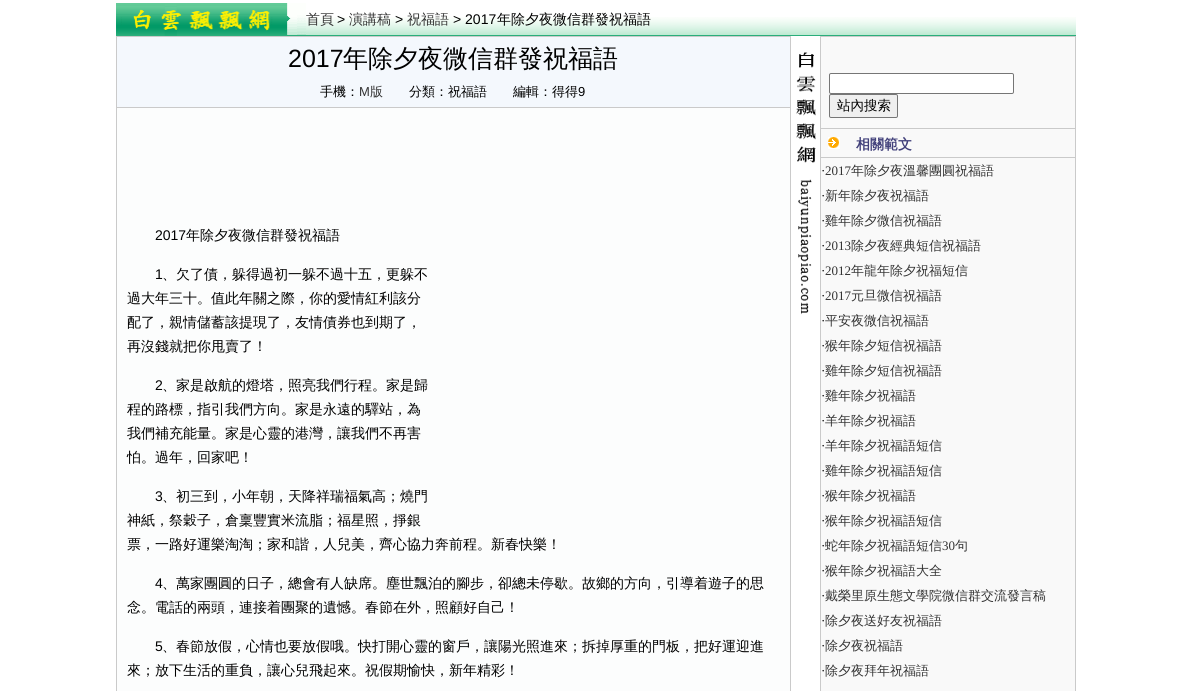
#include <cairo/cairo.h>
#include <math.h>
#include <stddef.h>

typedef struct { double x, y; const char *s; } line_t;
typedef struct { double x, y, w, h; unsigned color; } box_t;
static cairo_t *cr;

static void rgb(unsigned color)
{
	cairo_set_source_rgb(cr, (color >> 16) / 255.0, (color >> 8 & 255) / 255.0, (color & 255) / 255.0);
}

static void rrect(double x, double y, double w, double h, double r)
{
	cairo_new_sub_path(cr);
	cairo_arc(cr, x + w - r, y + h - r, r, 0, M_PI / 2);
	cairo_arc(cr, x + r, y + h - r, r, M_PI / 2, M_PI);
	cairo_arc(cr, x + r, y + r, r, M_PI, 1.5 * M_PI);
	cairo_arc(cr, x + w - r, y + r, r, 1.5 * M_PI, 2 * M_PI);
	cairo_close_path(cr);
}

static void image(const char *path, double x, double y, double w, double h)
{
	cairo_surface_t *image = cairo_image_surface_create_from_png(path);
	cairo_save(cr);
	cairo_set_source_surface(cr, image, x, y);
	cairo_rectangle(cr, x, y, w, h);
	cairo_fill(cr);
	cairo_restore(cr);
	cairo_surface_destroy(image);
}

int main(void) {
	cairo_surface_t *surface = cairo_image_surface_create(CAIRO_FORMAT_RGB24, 1191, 691);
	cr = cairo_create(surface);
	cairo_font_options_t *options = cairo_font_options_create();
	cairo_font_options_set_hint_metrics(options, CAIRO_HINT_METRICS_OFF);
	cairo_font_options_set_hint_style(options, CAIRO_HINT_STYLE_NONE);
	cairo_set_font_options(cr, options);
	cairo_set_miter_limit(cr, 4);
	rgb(0xffffff);
	cairo_paint(cr);
	image("img/1.png", 306, 17, 770, 19);
	image("img/2.png", 116, 3, 190, 33);
	cairo_rectangle(cr, 116.5, 36.5, 674, 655);
	rgb(0xcacaca);
	cairo_set_line_width(cr, 1);
	cairo_stroke(cr);
	{
		static const box_t items[] = {
			{117, 37, 673, 70, 0xf4f8fd},
			{117, 107, 673, 1, 0xcacaca},
			{117, 108, 673, 583, 0xfcfdfd},
		};
		for (size_t i = 0; i < sizeof items / sizeof *items; i++) {
			rgb(items[i].color);
			cairo_rectangle(cr, items[i].x, items[i].y, items[i].w, items[i].h);
			cairo_fill(cr);
		}
	}
	image("img/3.png", 796, 52, 20, 263);
	rgb(0xf9f9f9);
	cairo_rectangle(cr, 820.5, 36.5, 255, 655);
	cairo_fill_preserve(cr);
	rgb(0xcacaca);
	cairo_stroke(cr);
	rgb(0xffffff);
	rrect(829.5, 73.5, 184, 20, 1.5);
	cairo_fill_preserve(cr);
	rgb(0x767676);
	cairo_stroke(cr);
	rgb(0xefefef);
	rrect(829.5, 94.5, 68, 23, 1.5);
	cairo_fill_preserve(cr);
	rgb(0x767676);
	cairo_stroke(cr);
	image("img/4.png", 828, 137, 12, 12);
	rgb(0xcacaca);
	cairo_rectangle(cr, 821, 128, 254, 1);
	cairo_fill(cr);
	cairo_rectangle(cr, 821, 157, 254, 1);
	cairo_fill(cr);
	cairo_select_font_face(cr, "WenQuanYi Zen Hei Medium", CAIRO_FONT_SLANT_NORMAL, CAIRO_FONT_WEIGHT_NORMAL);
	cairo_set_font_size(cr, 14);
	rgb(0x333333);
	cairo_move_to(cr, 306, 24);
	cairo_show_text(cr, "首頁");
	cairo_select_font_face(cr, "Liberation Sans", CAIRO_FONT_SLANT_NORMAL, CAIRO_FONT_WEIGHT_NORMAL);
	rgb(0x000000);
	cairo_move_to(cr, 337, 24);
	cairo_show_text(cr, ">");
	cairo_select_font_face(cr, "WenQuanYi Zen Hei Medium", CAIRO_FONT_SLANT_NORMAL, CAIRO_FONT_WEIGHT_NORMAL);
	rgb(0x333333);
	cairo_move_to(cr, 349, 24);
	cairo_show_text(cr, "演講稿");
	cairo_select_font_face(cr, "Liberation Sans", CAIRO_FONT_SLANT_NORMAL, CAIRO_FONT_WEIGHT_NORMAL);
	rgb(0x000000);
	cairo_move_to(cr, 395, 24);
	cairo_show_text(cr, ">");
	cairo_select_font_face(cr, "WenQuanYi Zen Hei Medium", CAIRO_FONT_SLANT_NORMAL, CAIRO_FONT_WEIGHT_NORMAL);
	rgb(0x333333);
	cairo_move_to(cr, 407, 24);
	cairo_show_text(cr, "祝福語");
	cairo_select_font_face(cr, "Liberation Sans", CAIRO_FONT_SLANT_NORMAL, CAIRO_FONT_WEIGHT_NORMAL);
	rgb(0x000000);
	cairo_move_to(cr, 453, 24);
	cairo_show_text(cr, "> 2017");
	cairo_select_font_face(cr, "WenQuanYi Zen Hei Medium", CAIRO_FONT_SLANT_NORMAL, CAIRO_FONT_WEIGHT_NORMAL);
	cairo_move_to(cr, 497, 24);
	cairo_show_text(cr, "年除夕夜微信群發祝福語");
	cairo_select_font_face(cr, "Liberation Sans", CAIRO_FONT_SLANT_NORMAL, CAIRO_FONT_WEIGHT_NORMAL);
	cairo_set_font_size(cr, 25);
	cairo_move_to(cr, 288, 67);
	cairo_show_text(cr, "2017");
	cairo_select_font_face(cr, "WenQuanYi Zen Hei Medium", CAIRO_FONT_SLANT_NORMAL, CAIRO_FONT_WEIGHT_NORMAL);
	cairo_move_to(cr, 343, 67);
	cairo_show_text(cr, "年除夕夜微信群發祝福語");
	cairo_set_font_size(cr, 13);
	cairo_move_to(cr, 320, 96);
	cairo_show_text(cr, "手機：");
	cairo_select_font_face(cr, "Liberation Sans", CAIRO_FONT_SLANT_NORMAL, CAIRO_FONT_WEIGHT_NORMAL);
	rgb(0x333333);
	cairo_move_to(cr, 359, 96);
	cairo_show_text(cr, "M");
	cairo_select_font_face(cr, "WenQuanYi Zen Hei Medium", CAIRO_FONT_SLANT_NORMAL, CAIRO_FONT_WEIGHT_NORMAL);
	cairo_move_to(cr, 370, 96);
	cairo_show_text(cr, "版");
	rgb(0x000000);
	cairo_move_to(cr, 409, 96);
	cairo_show_text(cr, "分類：祝福語　　編輯：得得");
	cairo_select_font_face(cr, "Liberation Sans", CAIRO_FONT_SLANT_NORMAL, CAIRO_FONT_WEIGHT_NORMAL);
	cairo_move_to(cr, 578, 96);
	cairo_show_text(cr, "9");
	cairo_set_font_size(cr, 14);
	cairo_move_to(cr, 155, 240);
	cairo_show_text(cr, "2017");
	cairo_select_font_face(cr, "WenQuanYi Zen Hei Medium", CAIRO_FONT_SLANT_NORMAL, CAIRO_FONT_WEIGHT_NORMAL);
	cairo_move_to(cr, 186, 240);
	cairo_show_text(cr, "年除夕夜微信群發祝福語");
	cairo_select_font_face(cr, "Liberation Sans", CAIRO_FONT_SLANT_NORMAL, CAIRO_FONT_WEIGHT_NORMAL);
	cairo_move_to(cr, 155, 279);
	cairo_show_text(cr, "1");
	cairo_select_font_face(cr, "WenQuanYi Zen Hei Medium", CAIRO_FONT_SLANT_NORMAL, CAIRO_FONT_WEIGHT_NORMAL);
	{
		static const line_t items[] = {
			{162, 279, "、欠了債，躲得過初一躲不過十五，更躲不"},
			{127, 303, "過大年三十。值此年關之際，你的愛情紅利該分"},
			{127, 327, "配了，親情儲蓄該提現了，友情債券也到期了，"},
			{127, 351, "再沒錢就把你甩賣了！"},
		};
		for (size_t i = 0; i < sizeof items / sizeof *items; i++) {
			cairo_move_to(cr, items[i].x, items[i].y);
			cairo_show_text(cr, items[i].s);
		}
	}
	cairo_select_font_face(cr, "Liberation Sans", CAIRO_FONT_SLANT_NORMAL, CAIRO_FONT_WEIGHT_NORMAL);
	cairo_move_to(cr, 155, 390);
	cairo_show_text(cr, "2");
	cairo_select_font_face(cr, "WenQuanYi Zen Hei Medium", CAIRO_FONT_SLANT_NORMAL, CAIRO_FONT_WEIGHT_NORMAL);
	{
		static const line_t items[] = {
			{162, 390, "、家是啟航的燈塔，照亮我們行程。家是歸"},
			{127, 414, "程的路標，指引我們方向。家是永遠的驛站，為"},
			{127, 438, "我們補充能量。家是心靈的港灣，讓我們不再害"},
			{127, 462, "怕。過年，回家吧！"},
		};
		for (size_t i = 0; i < sizeof items / sizeof *items; i++) {
			cairo_move_to(cr, items[i].x, items[i].y);
			cairo_show_text(cr, items[i].s);
		}
	}
	cairo_select_font_face(cr, "Liberation Sans", CAIRO_FONT_SLANT_NORMAL, CAIRO_FONT_WEIGHT_NORMAL);
	cairo_move_to(cr, 155, 501);
	cairo_show_text(cr, "3");
	cairo_select_font_face(cr, "WenQuanYi Zen Hei Medium", CAIRO_FONT_SLANT_NORMAL, CAIRO_FONT_WEIGHT_NORMAL);
	{
		static const line_t items[] = {
			{162, 501, "、初三到，小年朝，天降祥瑞福氣高；燒門"},
			{127, 525, "神紙，祭穀子，倉稟豐實米流脂；福星照，掙銀"},
			{127, 549, "票，一路好運樂淘淘；家和諧，人兒美，齊心協力奔前程。新春快樂！"},
		};
		for (size_t i = 0; i < sizeof items / sizeof *items; i++) {
			cairo_move_to(cr, items[i].x, items[i].y);
			cairo_show_text(cr, items[i].s);
		}
	}
	cairo_select_font_face(cr, "Liberation Sans", CAIRO_FONT_SLANT_NORMAL, CAIRO_FONT_WEIGHT_NORMAL);
	cairo_move_to(cr, 155, 588);
	cairo_show_text(cr, "4");
	cairo_select_font_face(cr, "WenQuanYi Zen Hei Medium", CAIRO_FONT_SLANT_NORMAL, CAIRO_FONT_WEIGHT_NORMAL);
	cairo_move_to(cr, 162, 588);
	cairo_show_text(cr, "、萬家團圓的日子，總會有人缺席。塵世飄泊的腳步，卻總未停歇。故鄉的方向，引導着遊子的思");
	cairo_move_to(cr, 127, 612);
	cairo_show_text(cr, "念。電話的兩頭，連接着團聚的遺憾。春節在外，照顧好自己！");
	cairo_select_font_face(cr, "Liberation Sans", CAIRO_FONT_SLANT_NORMAL, CAIRO_FONT_WEIGHT_NORMAL);
	cairo_move_to(cr, 155, 651);
	cairo_show_text(cr, "5");
	cairo_select_font_face(cr, "WenQuanYi Zen Hei Medium", CAIRO_FONT_SLANT_NORMAL, CAIRO_FONT_WEIGHT_NORMAL);
	cairo_move_to(cr, 162, 651);
	cairo_show_text(cr, "、春節放假，心情也要放假哦。快打開心靈的窗戶，讓陽光照進來；拆掉厚重的門板，把好運迎進");
	cairo_move_to(cr, 127, 675);
	cairo_show_text(cr, "來；放下生活的重負，讓心兒飛起來。祝假期愉快，新年精彩！");
	cairo_set_font_size(cr, 13.5);
	cairo_move_to(cr, 837, 110);
	cairo_show_text(cr, "站內搜索");
	cairo_select_font_face(cr, "WenQuanYi Zen Hei", CAIRO_FONT_SLANT_NORMAL, CAIRO_FONT_WEIGHT_BOLD);
	cairo_set_font_size(cr, 14);
	rgb(0x42417b);
	cairo_move_to(cr, 856, 149);
	cairo_show_text(cr, "相關範文");
	cairo_select_font_face(cr, "Liberation Serif", CAIRO_FONT_SLANT_NORMAL, CAIRO_FONT_WEIGHT_NORMAL);
	cairo_set_font_size(cr, 13);
	rgb(0x000000);
	cairo_move_to(cr, 821, 175);
	cairo_show_text(cr, "·");
	rgb(0x333333);
	cairo_move_to(cr, 825, 175);
	cairo_show_text(cr, "2017");
	cairo_select_font_face(cr, "WenQuanYi Zen Hei Medium", CAIRO_FONT_SLANT_NORMAL, CAIRO_FONT_WEIGHT_NORMAL);
	cairo_move_to(cr, 851, 175);
	cairo_show_text(cr, "年除夕夜溫馨團圓祝福語");
	cairo_select_font_face(cr, "Liberation Serif", CAIRO_FONT_SLANT_NORMAL, CAIRO_FONT_WEIGHT_NORMAL);
	rgb(0x000000);
	cairo_move_to(cr, 821, 200);
	cairo_show_text(cr, "·");
	cairo_select_font_face(cr, "WenQuanYi Zen Hei Medium", CAIRO_FONT_SLANT_NORMAL, CAIRO_FONT_WEIGHT_NORMAL);
	rgb(0x333333);
	cairo_move_to(cr, 825, 200);
	cairo_show_text(cr, "新年除夕夜祝福語");
	cairo_select_font_face(cr, "Liberation Serif", CAIRO_FONT_SLANT_NORMAL, CAIRO_FONT_WEIGHT_NORMAL);
	rgb(0x000000);
	cairo_move_to(cr, 821, 225);
	cairo_show_text(cr, "·");
	cairo_select_font_face(cr, "WenQuanYi Zen Hei Medium", CAIRO_FONT_SLANT_NORMAL, CAIRO_FONT_WEIGHT_NORMAL);
	rgb(0x333333);
	cairo_move_to(cr, 825, 225);
	cairo_show_text(cr, "雞年除夕微信祝福語");
	cairo_select_font_face(cr, "Liberation Serif", CAIRO_FONT_SLANT_NORMAL, CAIRO_FONT_WEIGHT_NORMAL);
	rgb(0x000000);
	cairo_move_to(cr, 821, 250);
	cairo_show_text(cr, "·");
	rgb(0x333333);
	cairo_move_to(cr, 825, 250);
	cairo_show_text(cr, "2013");
	cairo_select_font_face(cr, "WenQuanYi Zen Hei Medium", CAIRO_FONT_SLANT_NORMAL, CAIRO_FONT_WEIGHT_NORMAL);
	cairo_move_to(cr, 851, 250);
	cairo_show_text(cr, "除夕夜經典短信祝福語");
	cairo_select_font_face(cr, "Liberation Serif", CAIRO_FONT_SLANT_NORMAL, CAIRO_FONT_WEIGHT_NORMAL);
	rgb(0x000000);
	cairo_move_to(cr, 821, 275);
	cairo_show_text(cr, "·");
	rgb(0x333333);
	cairo_move_to(cr, 825, 275);
	cairo_show_text(cr, "2012");
	cairo_select_font_face(cr, "WenQuanYi Zen Hei Medium", CAIRO_FONT_SLANT_NORMAL, CAIRO_FONT_WEIGHT_NORMAL);
	cairo_move_to(cr, 851, 275);
	cairo_show_text(cr, "年龍年除夕祝福短信");
	cairo_select_font_face(cr, "Liberation Serif", CAIRO_FONT_SLANT_NORMAL, CAIRO_FONT_WEIGHT_NORMAL);
	rgb(0x000000);
	cairo_move_to(cr, 821, 300);
	cairo_show_text(cr, "·");
	rgb(0x333333);
	cairo_move_to(cr, 825, 300);
	cairo_show_text(cr, "2017");
	cairo_select_font_face(cr, "WenQuanYi Zen Hei Medium", CAIRO_FONT_SLANT_NORMAL, CAIRO_FONT_WEIGHT_NORMAL);
	cairo_move_to(cr, 851, 300);
	cairo_show_text(cr, "元旦微信祝福語");
	cairo_select_font_face(cr, "Liberation Serif", CAIRO_FONT_SLANT_NORMAL, CAIRO_FONT_WEIGHT_NORMAL);
	rgb(0x000000);
	cairo_move_to(cr, 821, 325);
	cairo_show_text(cr, "·");
	cairo_select_font_face(cr, "WenQuanYi Zen Hei Medium", CAIRO_FONT_SLANT_NORMAL, CAIRO_FONT_WEIGHT_NORMAL);
	rgb(0x333333);
	cairo_move_to(cr, 825, 325);
	cairo_show_text(cr, "平安夜微信祝福語");
	cairo_select_font_face(cr, "Liberation Serif", CAIRO_FONT_SLANT_NORMAL, CAIRO_FONT_WEIGHT_NORMAL);
	rgb(0x000000);
	cairo_move_to(cr, 821, 350);
	cairo_show_text(cr, "·");
	cairo_select_font_face(cr, "WenQuanYi Zen Hei Medium", CAIRO_FONT_SLANT_NORMAL, CAIRO_FONT_WEIGHT_NORMAL);
	rgb(0x333333);
	cairo_move_to(cr, 825, 350);
	cairo_show_text(cr, "猴年除夕短信祝福語");
	cairo_select_font_face(cr, "Liberation Serif", CAIRO_FONT_SLANT_NORMAL, CAIRO_FONT_WEIGHT_NORMAL);
	rgb(0x000000);
	cairo_move_to(cr, 821, 375);
	cairo_show_text(cr, "·");
	cairo_select_font_face(cr, "WenQuanYi Zen Hei Medium", CAIRO_FONT_SLANT_NORMAL, CAIRO_FONT_WEIGHT_NORMAL);
	rgb(0x333333);
	cairo_move_to(cr, 825, 375);
	cairo_show_text(cr, "雞年除夕短信祝福語");
	cairo_select_font_face(cr, "Liberation Serif", CAIRO_FONT_SLANT_NORMAL, CAIRO_FONT_WEIGHT_NORMAL);
	rgb(0x000000);
	cairo_move_to(cr, 821, 400);
	cairo_show_text(cr, "·");
	cairo_select_font_face(cr, "WenQuanYi Zen Hei Medium", CAIRO_FONT_SLANT_NORMAL, CAIRO_FONT_WEIGHT_NORMAL);
	rgb(0x333333);
	cairo_move_to(cr, 825, 400);
	cairo_show_text(cr, "雞年除夕祝福語");
	cairo_select_font_face(cr, "Liberation Serif", CAIRO_FONT_SLANT_NORMAL, CAIRO_FONT_WEIGHT_NORMAL);
	rgb(0x000000);
	cairo_move_to(cr, 821, 425);
	cairo_show_text(cr, "·");
	cairo_select_font_face(cr, "WenQuanYi Zen Hei Medium", CAIRO_FONT_SLANT_NORMAL, CAIRO_FONT_WEIGHT_NORMAL);
	rgb(0x333333);
	cairo_move_to(cr, 825, 425);
	cairo_show_text(cr, "羊年除夕祝福語");
	cairo_select_font_face(cr, "Liberation Serif", CAIRO_FONT_SLANT_NORMAL, CAIRO_FONT_WEIGHT_NORMAL);
	rgb(0x000000);
	cairo_move_to(cr, 821, 450);
	cairo_show_text(cr, "·");
	cairo_select_font_face(cr, "WenQuanYi Zen Hei Medium", CAIRO_FONT_SLANT_NORMAL, CAIRO_FONT_WEIGHT_NORMAL);
	rgb(0x333333);
	cairo_move_to(cr, 825, 450);
	cairo_show_text(cr, "羊年除夕祝福語短信");
	cairo_select_font_face(cr, "Liberation Serif", CAIRO_FONT_SLANT_NORMAL, CAIRO_FONT_WEIGHT_NORMAL);
	rgb(0x000000);
	cairo_move_to(cr, 821, 475);
	cairo_show_text(cr, "·");
	cairo_select_font_face(cr, "WenQuanYi Zen Hei Medium", CAIRO_FONT_SLANT_NORMAL, CAIRO_FONT_WEIGHT_NORMAL);
	rgb(0x333333);
	cairo_move_to(cr, 825, 475);
	cairo_show_text(cr, "雞年除夕祝福語短信");
	cairo_select_font_face(cr, "Liberation Serif", CAIRO_FONT_SLANT_NORMAL, CAIRO_FONT_WEIGHT_NORMAL);
	rgb(0x000000);
	cairo_move_to(cr, 821, 500);
	cairo_show_text(cr, "·");
	cairo_select_font_face(cr, "WenQuanYi Zen Hei Medium", CAIRO_FONT_SLANT_NORMAL, CAIRO_FONT_WEIGHT_NORMAL);
	rgb(0x333333);
	cairo_move_to(cr, 825, 500);
	cairo_show_text(cr, "猴年除夕祝福語");
	cairo_select_font_face(cr, "Liberation Serif", CAIRO_FONT_SLANT_NORMAL, CAIRO_FONT_WEIGHT_NORMAL);
	rgb(0x000000);
	cairo_move_to(cr, 821, 525);
	cairo_show_text(cr, "·");
	cairo_select_font_face(cr, "WenQuanYi Zen Hei Medium", CAIRO_FONT_SLANT_NORMAL, CAIRO_FONT_WEIGHT_NORMAL);
	rgb(0x333333);
	cairo_move_to(cr, 825, 525);
	cairo_show_text(cr, "猴年除夕祝福語短信");
	cairo_select_font_face(cr, "Liberation Serif", CAIRO_FONT_SLANT_NORMAL, CAIRO_FONT_WEIGHT_NORMAL);
	rgb(0x000000);
	cairo_move_to(cr, 821, 550);
	cairo_show_text(cr, "·");
	cairo_select_font_face(cr, "WenQuanYi Zen Hei Medium", CAIRO_FONT_SLANT_NORMAL, CAIRO_FONT_WEIGHT_NORMAL);
	rgb(0x333333);
	cairo_move_to(cr, 825, 550);
	cairo_show_text(cr, "蛇年除夕祝福語短信");
	cairo_select_font_face(cr, "Liberation Serif", CAIRO_FONT_SLANT_NORMAL, CAIRO_FONT_WEIGHT_NORMAL);
	cairo_move_to(cr, 942, 550);
	cairo_show_text(cr, "30");
	cairo_select_font_face(cr, "WenQuanYi Zen Hei Medium", CAIRO_FONT_SLANT_NORMAL, CAIRO_FONT_WEIGHT_NORMAL);
	cairo_move_to(cr, 955, 550);
	cairo_show_text(cr, "句");
	cairo_select_font_face(cr, "Liberation Serif", CAIRO_FONT_SLANT_NORMAL, CAIRO_FONT_WEIGHT_NORMAL);
	rgb(0x000000);
	cairo_move_to(cr, 821, 575);
	cairo_show_text(cr, "·");
	cairo_select_font_face(cr, "WenQuanYi Zen Hei Medium", CAIRO_FONT_SLANT_NORMAL, CAIRO_FONT_WEIGHT_NORMAL);
	rgb(0x333333);
	cairo_move_to(cr, 825, 575);
	cairo_show_text(cr, "猴年除夕祝福語大全");
	cairo_select_font_face(cr, "Liberation Serif", CAIRO_FONT_SLANT_NORMAL, CAIRO_FONT_WEIGHT_NORMAL);
	rgb(0x000000);
	cairo_move_to(cr, 821, 600);
	cairo_show_text(cr, "·");
	cairo_select_font_face(cr, "WenQuanYi Zen Hei Medium", CAIRO_FONT_SLANT_NORMAL, CAIRO_FONT_WEIGHT_NORMAL);
	rgb(0x333333);
	cairo_move_to(cr, 825, 600);
	cairo_show_text(cr, "戴榮里原生態文學院微信群交流發言稿");
	cairo_select_font_face(cr, "Liberation Serif", CAIRO_FONT_SLANT_NORMAL, CAIRO_FONT_WEIGHT_NORMAL);
	rgb(0x000000);
	cairo_move_to(cr, 821, 625);
	cairo_show_text(cr, "·");
	cairo_select_font_face(cr, "WenQuanYi Zen Hei Medium", CAIRO_FONT_SLANT_NORMAL, CAIRO_FONT_WEIGHT_NORMAL);
	rgb(0x333333);
	cairo_move_to(cr, 825, 625);
	cairo_show_text(cr, "除夕夜送好友祝福語");
	cairo_select_font_face(cr, "Liberation Serif", CAIRO_FONT_SLANT_NORMAL, CAIRO_FONT_WEIGHT_NORMAL);
	rgb(0x000000);
	cairo_move_to(cr, 821, 650);
	cairo_show_text(cr, "·");
	cairo_select_font_face(cr, "WenQuanYi Zen Hei Medium", CAIRO_FONT_SLANT_NORMAL, CAIRO_FONT_WEIGHT_NORMAL);
	rgb(0x333333);
	cairo_move_to(cr, 825, 650);
	cairo_show_text(cr, "除夕夜祝福語");
	cairo_select_font_face(cr, "Liberation Serif", CAIRO_FONT_SLANT_NORMAL, CAIRO_FONT_WEIGHT_NORMAL);
	rgb(0x000000);
	cairo_move_to(cr, 821, 675);
	cairo_show_text(cr, "·");
	cairo_select_font_face(cr, "WenQuanYi Zen Hei Medium", CAIRO_FONT_SLANT_NORMAL, CAIRO_FONT_WEIGHT_NORMAL);
	rgb(0x333333);
	cairo_move_to(cr, 825, 675);
	cairo_show_text(cr, "除夕夜拜年祝福語");
	cairo_surface_write_to_png(surface, "page.png");
	cairo_font_options_destroy(options);
	cairo_destroy(cr);
	cairo_surface_destroy(surface);
	return 0;
}
